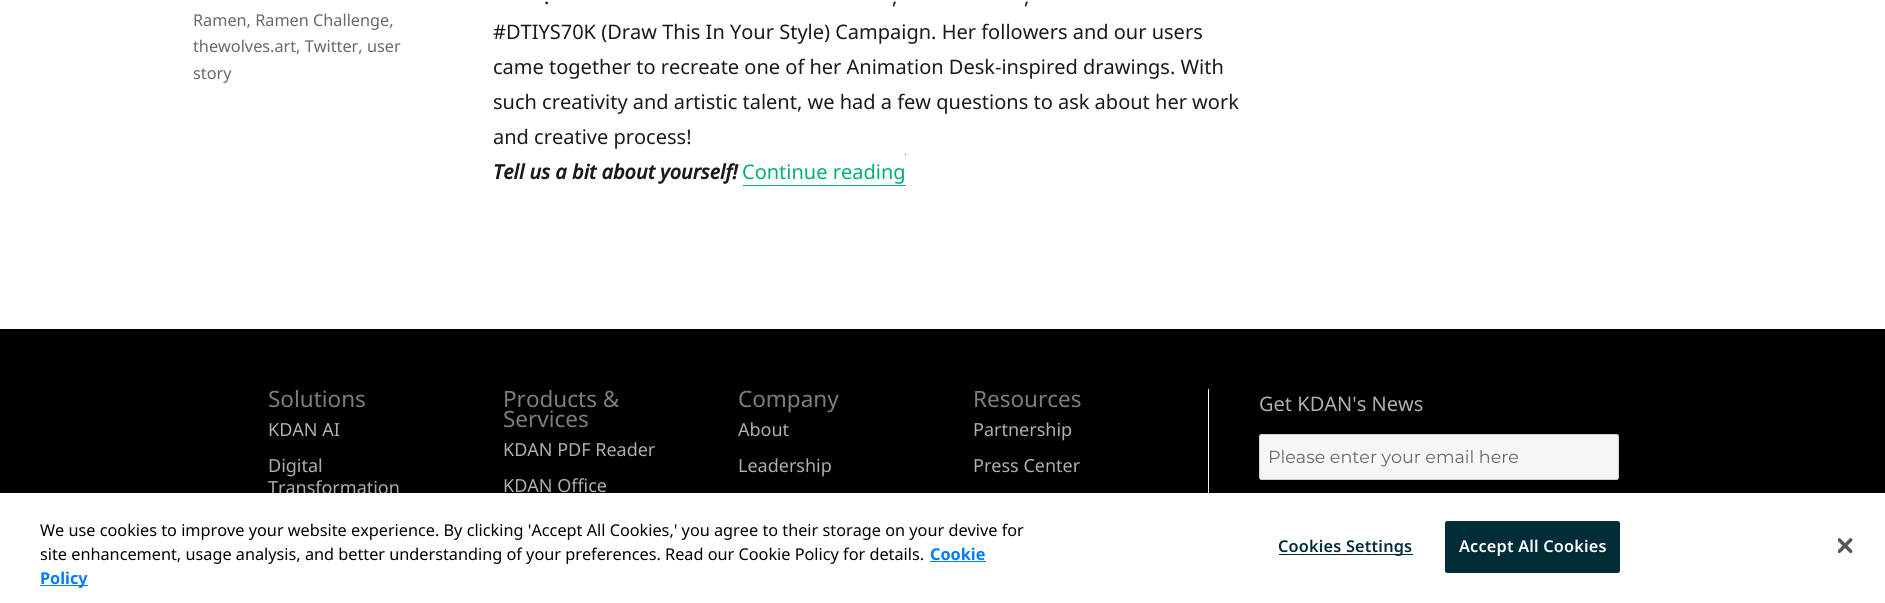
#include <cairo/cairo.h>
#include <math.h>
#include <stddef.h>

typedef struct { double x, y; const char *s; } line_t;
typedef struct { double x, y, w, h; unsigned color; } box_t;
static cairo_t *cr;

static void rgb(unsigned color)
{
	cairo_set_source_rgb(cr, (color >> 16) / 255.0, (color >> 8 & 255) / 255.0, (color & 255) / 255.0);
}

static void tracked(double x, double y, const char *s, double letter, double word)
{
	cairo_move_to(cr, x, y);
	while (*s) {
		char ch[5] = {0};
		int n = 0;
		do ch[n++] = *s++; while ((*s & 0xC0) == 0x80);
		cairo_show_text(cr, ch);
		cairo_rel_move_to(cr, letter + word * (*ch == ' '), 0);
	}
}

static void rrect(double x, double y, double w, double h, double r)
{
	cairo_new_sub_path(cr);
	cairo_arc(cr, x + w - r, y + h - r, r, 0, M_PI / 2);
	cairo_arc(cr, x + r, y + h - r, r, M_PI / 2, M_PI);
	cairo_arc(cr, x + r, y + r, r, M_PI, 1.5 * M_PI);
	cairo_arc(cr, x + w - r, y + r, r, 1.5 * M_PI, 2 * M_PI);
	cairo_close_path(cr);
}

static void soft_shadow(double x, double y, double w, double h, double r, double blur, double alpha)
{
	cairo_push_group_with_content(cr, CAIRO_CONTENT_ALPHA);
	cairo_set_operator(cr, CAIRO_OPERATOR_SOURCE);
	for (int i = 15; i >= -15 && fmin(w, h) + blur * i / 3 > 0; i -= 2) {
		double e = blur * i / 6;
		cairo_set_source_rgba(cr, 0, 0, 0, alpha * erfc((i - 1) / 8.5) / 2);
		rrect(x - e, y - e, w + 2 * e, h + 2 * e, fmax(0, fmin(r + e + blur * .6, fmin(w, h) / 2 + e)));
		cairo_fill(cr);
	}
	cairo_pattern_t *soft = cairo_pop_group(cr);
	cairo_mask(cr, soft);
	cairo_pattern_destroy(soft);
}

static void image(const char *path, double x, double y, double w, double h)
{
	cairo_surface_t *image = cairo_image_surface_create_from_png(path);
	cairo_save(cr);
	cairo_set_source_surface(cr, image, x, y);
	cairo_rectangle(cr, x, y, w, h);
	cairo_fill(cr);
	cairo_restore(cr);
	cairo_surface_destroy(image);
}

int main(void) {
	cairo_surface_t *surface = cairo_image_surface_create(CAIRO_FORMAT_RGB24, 1885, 603);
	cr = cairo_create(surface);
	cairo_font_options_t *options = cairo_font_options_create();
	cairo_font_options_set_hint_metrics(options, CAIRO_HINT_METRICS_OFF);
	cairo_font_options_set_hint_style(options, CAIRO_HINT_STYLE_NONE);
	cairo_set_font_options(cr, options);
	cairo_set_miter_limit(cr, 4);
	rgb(0xffffff);
	cairo_paint(cr);
	{
		static const box_t items[] = {
			{743, 185, 163, 1, 0x00b06c},
			{905, 154, 1, 1, 0x00b06c},
			{0, 329, 1885, 164, 0x000000},
			{1208, 389, 1, 104, 0xffffff},
		};
		for (size_t i = 0; i < sizeof items / sizeof *items; i++) {
			rgb(items[i].color);
			cairo_rectangle(cr, items[i].x, items[i].y, items[i].w, items[i].h);
			cairo_fill(cr);
		}
	}
	rgb(0xf7f7f7);
	rrect(1259.5, 434.5, 359, 45, 2);
	cairo_fill_preserve(cr);
	rgb(0xd1d1d1);
	cairo_set_line_width(cr, 1);
	cairo_stroke(cr);
	rgb(0x000000);
	soft_shadow(0, 493, 1885, 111, 0, 11, 0.2);
	cairo_select_font_face(cr, "Noto Sans", CAIRO_FONT_SLANT_NORMAL, CAIRO_FONT_WEIGHT_NORMAL);
	cairo_set_font_size(cr, 16.25);
	rgb(0x686868);
	{
		static const line_t items[] = {
			{193, 26, "Ramen, Ramen Challenge,"},
			{193, 52, "thewolves.art, Twitter, user"},
			{193, 79, "story"},
		};
		for (size_t i = 0; i < sizeof items / sizeof *items; i++) {
			cairo_move_to(cr, items[i].x, items[i].y);
			cairo_show_text(cr, items[i].s);
		}
	}
	cairo_set_font_size(cr, 20);
	rgb(0x1a1a1a);
	{
		static const line_t items[] = {
			{544, 4, "."},
			{892, 4, ","},
			{1024, 4, ","},
			{493, 39, "#DTIYS70K (Draw This In Your Style) Campaign. Her followers and our users"},
			{493, 74, "came together to recreate one of her Animation Desk-inspired drawings. With"},
			{493, 109, "such creativity and artistic talent, we had a few questions to ask about her work"},
			{493, 144, "and creative process!"},
		};
		for (size_t i = 0; i < sizeof items / sizeof *items; i++) {
			cairo_move_to(cr, items[i].x, items[i].y);
			cairo_show_text(cr, items[i].s);
		}
	}
	cairo_select_font_face(cr, "Noto Sans", CAIRO_FONT_SLANT_ITALIC, CAIRO_FONT_WEIGHT_BOLD);
	cairo_move_to(cr, 493, 179);
	cairo_show_text(cr, "Tell us a bit about yourself!");
	cairo_select_font_face(cr, "Noto Sans", CAIRO_FONT_SLANT_NORMAL, CAIRO_FONT_WEIGHT_NORMAL);
	rgb(0x00b06c);
	cairo_move_to(cr, 742, 179);
	cairo_show_text(cr, "Continue reading");
	cairo_set_font_size(cr, 22.5);
	rgb(0x7d7d7d);
	cairo_move_to(cr, 268, 407);
	cairo_show_text(cr, "Solutions");
	cairo_set_font_size(cr, 18);
	rgb(0xafafaf);
	{
		static const line_t items[] = {
			{268, 436, "KDAN AI"},
			{268, 472, "Digital"},
			{268, 494, "Transformation"},
		};
		for (size_t i = 0; i < sizeof items / sizeof *items; i++) {
			cairo_move_to(cr, items[i].x, items[i].y);
			cairo_show_text(cr, items[i].s);
		}
	}
	cairo_set_font_size(cr, 22.5);
	rgb(0x7d7d7d);
	cairo_move_to(cr, 503, 407);
	cairo_show_text(cr, "Products &");
	cairo_move_to(cr, 503, 427);
	cairo_show_text(cr, "Services");
	cairo_set_font_size(cr, 18);
	rgb(0xafafaf);
	cairo_move_to(cr, 503, 456);
	cairo_show_text(cr, "KDAN PDF Reader");
	cairo_move_to(cr, 503, 492);
	cairo_show_text(cr, "KDAN Office");
	cairo_set_font_size(cr, 22.5);
	rgb(0x7d7d7d);
	cairo_move_to(cr, 738, 407);
	cairo_show_text(cr, "Company");
	cairo_set_font_size(cr, 18);
	rgb(0xafafaf);
	cairo_move_to(cr, 738, 436);
	cairo_show_text(cr, "About");
	cairo_move_to(cr, 738, 472);
	cairo_show_text(cr, "Leadership");
	cairo_set_font_size(cr, 22.5);
	rgb(0x7d7d7d);
	cairo_move_to(cr, 973, 407);
	cairo_show_text(cr, "Resources");
	cairo_set_font_size(cr, 18);
	rgb(0xafafaf);
	cairo_move_to(cr, 973, 436);
	cairo_show_text(cr, "Partnership");
	cairo_move_to(cr, 973, 472);
	cairo_show_text(cr, "Press Center");
	cairo_set_font_size(cr, 20);
	cairo_move_to(cr, 1259, 411);
	cairo_show_text(cr, "Get KDAN's News");
	cairo_select_font_face(cr, "Montserrat", CAIRO_FONT_SLANT_NORMAL, CAIRO_FONT_WEIGHT_NORMAL);
	cairo_set_font_size(cr, 17.5);
	rgb(0x686868);
	cairo_move_to(cr, 1268, 463);
	cairo_show_text(cr, "Please enter your email here");
	rgb(0xffffff);
	cairo_rectangle(cr, 0, 493, 1885, 110);
	cairo_fill(cr);
	cairo_select_font_face(cr, "Noto Sans", CAIRO_FONT_SLANT_NORMAL, CAIRO_FONT_WEIGHT_NORMAL);
	cairo_set_font_size(cr, 16.25);
	rgb(0x000000);
	cairo_move_to(cr, 40, 536);
	cairo_show_text(cr, "We use cookies to improve your website experience. By clicking 'Accept All Cookies,' you agree to their storage on your devive for");
	cairo_move_to(cr, 40, 560);
	cairo_show_text(cr, "site enhancement, usage analysis, and better understanding of your preferences. Read our Cookie Policy for details.");
	cairo_select_font_face(cr, "Noto Sans", CAIRO_FONT_SLANT_NORMAL, CAIRO_FONT_WEIGHT_BOLD);
	rgb(0x007aff);
	cairo_move_to(cr, 930, 560);
	cairo_show_text(cr, "Cookie");
	cairo_rectangle(cr, 930, 561, 56, 1);
	cairo_fill(cr);
	cairo_rectangle(cr, 40, 585, 48, 1);
	cairo_fill(cr);
	cairo_move_to(cr, 40, 584);
	cairo_show_text(cr, "Policy");
	rgb(0x002d37);
	cairo_rectangle(cr, 1279, 554, 134, 1);
	cairo_fill(cr);
	cairo_select_font_face(cr, "Noto Sans SemiBold", CAIRO_FONT_SLANT_NORMAL, CAIRO_FONT_WEIGHT_NORMAL);
	tracked(1278, 552, "Cookies Settings", 0.2, 0);
	rrect(1445.5, 521.5, 174, 51, 2);
	cairo_fill_preserve(cr);
	cairo_stroke(cr);
	rgb(0xffffff);
	tracked(1459, 552, "Accept All Cookies", 0.2, 0);
	image("img/1.png", 1838, 538, 15, 15);
	cairo_surface_write_to_png(surface, "page.png");
	cairo_font_options_destroy(options);
	cairo_destroy(cr);
	cairo_surface_destroy(surface);
	return 0;
}
